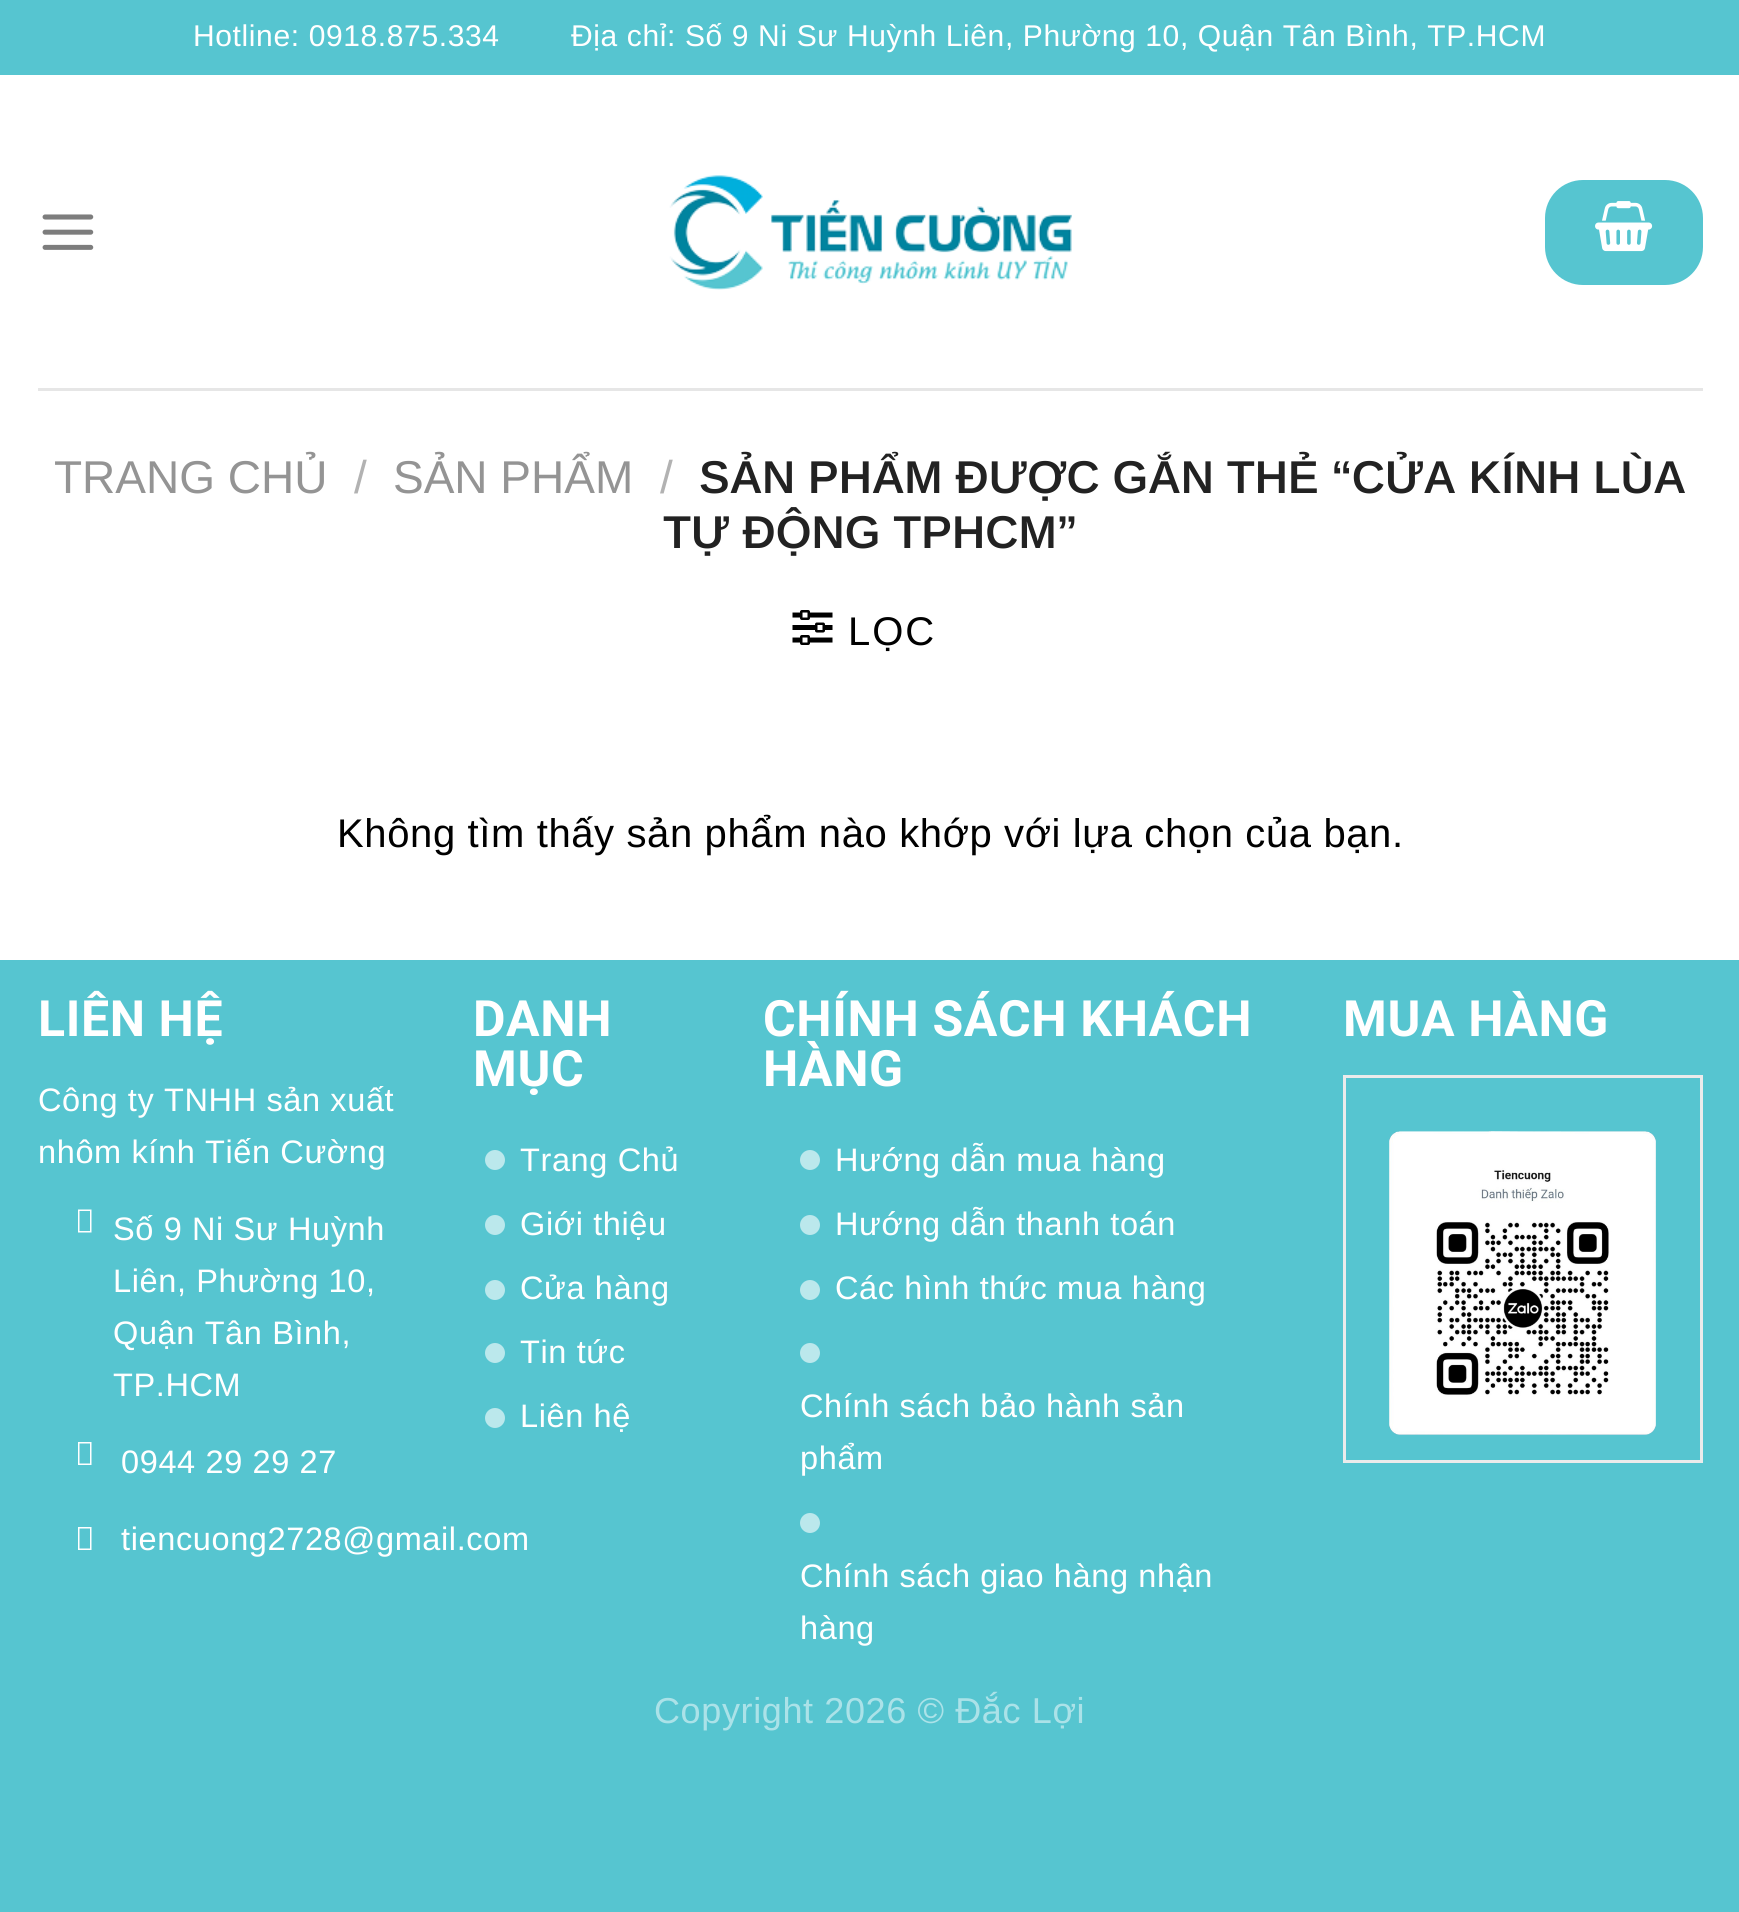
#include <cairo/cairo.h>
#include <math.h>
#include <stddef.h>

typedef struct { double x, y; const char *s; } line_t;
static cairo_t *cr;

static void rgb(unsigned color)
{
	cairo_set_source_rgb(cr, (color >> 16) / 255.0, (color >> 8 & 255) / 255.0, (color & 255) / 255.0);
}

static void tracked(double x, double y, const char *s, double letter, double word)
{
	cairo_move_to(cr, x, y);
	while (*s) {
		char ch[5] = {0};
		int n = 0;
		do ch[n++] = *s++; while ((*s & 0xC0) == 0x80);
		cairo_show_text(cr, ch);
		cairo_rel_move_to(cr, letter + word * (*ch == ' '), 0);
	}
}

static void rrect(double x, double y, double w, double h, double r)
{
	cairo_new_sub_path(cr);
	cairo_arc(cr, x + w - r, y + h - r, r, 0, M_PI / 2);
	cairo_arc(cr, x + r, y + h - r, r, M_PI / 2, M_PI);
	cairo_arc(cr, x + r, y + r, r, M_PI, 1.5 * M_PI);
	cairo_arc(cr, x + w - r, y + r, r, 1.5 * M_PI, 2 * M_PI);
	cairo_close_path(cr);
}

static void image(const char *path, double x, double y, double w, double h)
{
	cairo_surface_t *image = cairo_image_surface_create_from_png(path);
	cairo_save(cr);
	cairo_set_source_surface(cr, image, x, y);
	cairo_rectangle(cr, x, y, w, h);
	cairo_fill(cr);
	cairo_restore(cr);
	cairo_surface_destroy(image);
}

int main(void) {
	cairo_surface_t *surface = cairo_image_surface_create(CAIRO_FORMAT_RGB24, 1739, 1912);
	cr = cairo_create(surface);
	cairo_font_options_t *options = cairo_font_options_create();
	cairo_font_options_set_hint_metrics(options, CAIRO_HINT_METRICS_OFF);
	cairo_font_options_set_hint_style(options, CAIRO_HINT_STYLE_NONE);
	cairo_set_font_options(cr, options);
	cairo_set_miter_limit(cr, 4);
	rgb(0x56c5d0);
	cairo_paint(cr);
	rgb(0xffffff);
	cairo_rectangle(cr, 0, 75, 1739, 885);
	cairo_fill(cr);
	image("img/1.png", 42, 214, 52, 36);
	image("img/2.png", 669, 175, 403, 115);
	rgb(0x56c5d0);
	rrect(1545, 180, 158, 105, 38);
	cairo_fill(cr);
	image("img/3.png", 1595, 201, 58, 51);
	rgb(0xe6e6e6);
	cairo_rectangle(cr, 38, 388, 1665, 3);
	cairo_fill(cr);
	image("img/4.png", 792, 610, 41, 35);
	rgb(0xffffff);
	cairo_new_path(cr);
	cairo_move_to(cr, 78, 1232.5);
	cairo_line_to(cr, 78, 1209.5);
	cairo_line_to(cr, 91.5, 1209.5);
	cairo_line_to(cr, 91.5, 1232.5);
	cairo_close_path(cr);
	cairo_move_to(cr, 79.5, 1231);
	cairo_line_to(cr, 90, 1231);
	cairo_line_to(cr, 90, 1211);
	cairo_line_to(cr, 79.5, 1211);
	cairo_close_path(cr);
	cairo_fill(cr);
	cairo_new_path(cr);
	cairo_move_to(cr, 78, 1465);
	cairo_line_to(cr, 78, 1442);
	cairo_line_to(cr, 91.5, 1442);
	cairo_line_to(cr, 91.5, 1465);
	cairo_close_path(cr);
	cairo_move_to(cr, 79.5, 1463.5);
	cairo_line_to(cr, 90, 1463.5);
	cairo_line_to(cr, 90, 1443.5);
	cairo_line_to(cr, 79.5, 1443.5);
	cairo_close_path(cr);
	cairo_fill(cr);
	cairo_new_path(cr);
	cairo_move_to(cr, 78, 1550);
	cairo_line_to(cr, 78, 1527);
	cairo_line_to(cr, 91.5, 1527);
	cairo_line_to(cr, 91.5, 1550);
	cairo_close_path(cr);
	cairo_move_to(cr, 79.5, 1548.5);
	cairo_line_to(cr, 90, 1548.5);
	cairo_line_to(cr, 90, 1528.5);
	cairo_line_to(cr, 79.5, 1528.5);
	cairo_close_path(cr);
	cairo_fill(cr);
	rgb(0xbbe8ec);
	cairo_arc(cr, 495, 1160, 10, 0, 2 * M_PI);
	cairo_fill(cr);
	cairo_arc(cr, 495, 1225, 10, 0, 2 * M_PI);
	cairo_fill(cr);
	cairo_arc(cr, 495, 1290, 10, 0, 2 * M_PI);
	cairo_fill(cr);
	cairo_arc(cr, 495, 1353, 10, 0, 2 * M_PI);
	cairo_fill(cr);
	cairo_arc(cr, 495, 1418, 10, 0, 2 * M_PI);
	cairo_fill(cr);
	cairo_arc(cr, 810, 1160, 10, 0, 2 * M_PI);
	cairo_fill(cr);
	cairo_arc(cr, 810, 1225, 10, 0, 2 * M_PI);
	cairo_fill(cr);
	cairo_arc(cr, 810, 1290, 10, 0, 2 * M_PI);
	cairo_fill(cr);
	cairo_arc(cr, 810, 1353, 10, 0, 2 * M_PI);
	cairo_fill(cr);
	cairo_arc(cr, 810, 1523, 10, 0, 2 * M_PI);
	cairo_fill(cr);
	cairo_rectangle(cr, 1344.5, 1076.5, 357, 385);
	rgb(0xebebeb);
	cairo_set_line_width(cr, 3);
	cairo_stroke(cr);
	image("img/5.png", 1389, 1131, 267, 304);
	cairo_select_font_face(cr, "Arimo", CAIRO_FONT_SLANT_NORMAL, CAIRO_FONT_WEIGHT_NORMAL);
	cairo_set_font_size(cr, 30);
	rgb(0xffffff);
	tracked(193, 46, "Hotline: 0918.875.334", 0.62, 0);
	tracked(571, 46, "Địa chỉ: Số 9 Ni Sư Huỳnh Liên, Phường 10, Quận Tân Bình, TP.HCM", 0.62, 0);
	cairo_set_font_size(cr, 46);
	rgb(0x949494);
	cairo_move_to(cr, 54, 493);
	cairo_show_text(cr, "TRANG CHỦ");
	rgb(0xb2b2b2);
	cairo_move_to(cr, 354, 493);
	cairo_show_text(cr, "/");
	rgb(0x949494);
	cairo_move_to(cr, 393, 493);
	cairo_show_text(cr, "SẢN PHẨM");
	rgb(0xb2b2b2);
	cairo_move_to(cr, 660, 493);
	cairo_show_text(cr, "/");
	cairo_select_font_face(cr, "Arimo SemiBold", CAIRO_FONT_SLANT_NORMAL, CAIRO_FONT_WEIGHT_NORMAL);
	rgb(0x222222);
	cairo_move_to(cr, 699, 493);
	cairo_show_text(cr, "SẢN PHẨM ĐƯỢC GẮN THẺ “CỬA KÍNH LÙA");
	cairo_move_to(cr, 663, 548);
	cairo_show_text(cr, "TỰ ĐỘNG TPHCM”");
	cairo_select_font_face(cr, "Arimo", CAIRO_FONT_SLANT_NORMAL, CAIRO_FONT_WEIGHT_NORMAL);
	cairo_set_font_size(cr, 40);
	rgb(0x000000);
	tracked(848, 645, "LỌC", 2, 0);
	tracked(337, 847, "Không tìm thấy sản phẩm nào khớp với lựa chọn của bạn.", 0.62, 0);
	cairo_select_font_face(cr, "Roboto", CAIRO_FONT_SLANT_NORMAL, CAIRO_FONT_WEIGHT_BOLD);
	cairo_set_font_size(cr, 50);
	rgb(0xffffff);
	tracked(38, 1036, "LIÊN HỆ", 0.62, 0);
	cairo_select_font_face(cr, "Arimo", CAIRO_FONT_SLANT_NORMAL, CAIRO_FONT_WEIGHT_NORMAL);
	cairo_set_font_size(cr, 32.5);
	{
		static const line_t items[] = {
			{38, 1111, "Công ty TNHH sản xuất"},
			{38, 1163, "nhôm kính Tiến Cường"},
			{113, 1240, "Số 9 Ni Sư Huỳnh"},
			{113, 1292, "Liên, Phường 10,"},
			{113, 1344, "Quận Tân Bình,"},
			{113, 1396, "TP.HCM"},
			{121, 1473, "0944 29 29 27"},
			{121, 1550, "tiencuong2728@gmail.com"},
		};
		for (size_t i = 0; i < sizeof items / sizeof *items; i++) {
			tracked(items[i].x, items[i].y, items[i].s, 0.62, 0);
		}
	}
	cairo_select_font_face(cr, "Roboto", CAIRO_FONT_SLANT_NORMAL, CAIRO_FONT_WEIGHT_BOLD);
	cairo_set_font_size(cr, 50);
	tracked(473, 1036, "DANH", 0.62, 0);
	tracked(473, 1086, "MỤC", 0.62, 0);
	cairo_select_font_face(cr, "Arimo", CAIRO_FONT_SLANT_NORMAL, CAIRO_FONT_WEIGHT_NORMAL);
	cairo_set_font_size(cr, 32.5);
	{
		static const line_t items[] = {
			{520, 1171, "Trang Chủ"},
			{520, 1235, "Giới thiệu"},
			{520, 1299, "Cửa hàng"},
			{520, 1363, "Tin tức"},
			{520, 1427, "Liên hệ"},
		};
		for (size_t i = 0; i < sizeof items / sizeof *items; i++) {
			tracked(items[i].x, items[i].y, items[i].s, 0.62, 0);
		}
	}
	cairo_select_font_face(cr, "Roboto", CAIRO_FONT_SLANT_NORMAL, CAIRO_FONT_WEIGHT_BOLD);
	cairo_set_font_size(cr, 50);
	tracked(763, 1036, "CHÍNH SÁCH KHÁCH", 0.62, 0);
	tracked(763, 1086, "HÀNG", 0.62, 0);
	cairo_select_font_face(cr, "Arimo", CAIRO_FONT_SLANT_NORMAL, CAIRO_FONT_WEIGHT_NORMAL);
	cairo_set_font_size(cr, 32.5);
	{
		static const line_t items[] = {
			{835, 1171, "Hướng dẫn mua hàng"},
			{835, 1235, "Hướng dẫn thanh toán"},
			{835, 1299, "Các hình thức mua hàng"},
			{800, 1417, "Chính sách bảo hành sản"},
			{800, 1469, "phẩm"},
			{800, 1587, "Chính sách giao hàng nhận"},
			{800, 1639, "hàng"},
		};
		for (size_t i = 0; i < sizeof items / sizeof *items; i++) {
			tracked(items[i].x, items[i].y, items[i].s, 0.62, 0);
		}
	}
	cairo_select_font_face(cr, "Roboto", CAIRO_FONT_SLANT_NORMAL, CAIRO_FONT_WEIGHT_BOLD);
	cairo_set_font_size(cr, 50);
	tracked(1343, 1036, "MUA HÀNG", 0.62, 0);
	cairo_select_font_face(cr, "Arimo", CAIRO_FONT_SLANT_NORMAL, CAIRO_FONT_WEIGHT_NORMAL);
	cairo_set_font_size(cr, 36);
	rgb(0xabe2e8);
	tracked(654, 1723, "Copyright 2026 © Đắc Lợi", 0.62, 0);
	cairo_surface_write_to_png(surface, "page.png");
	cairo_font_options_destroy(options);
	cairo_destroy(cr);
	cairo_surface_destroy(surface);
	return 0;
}
